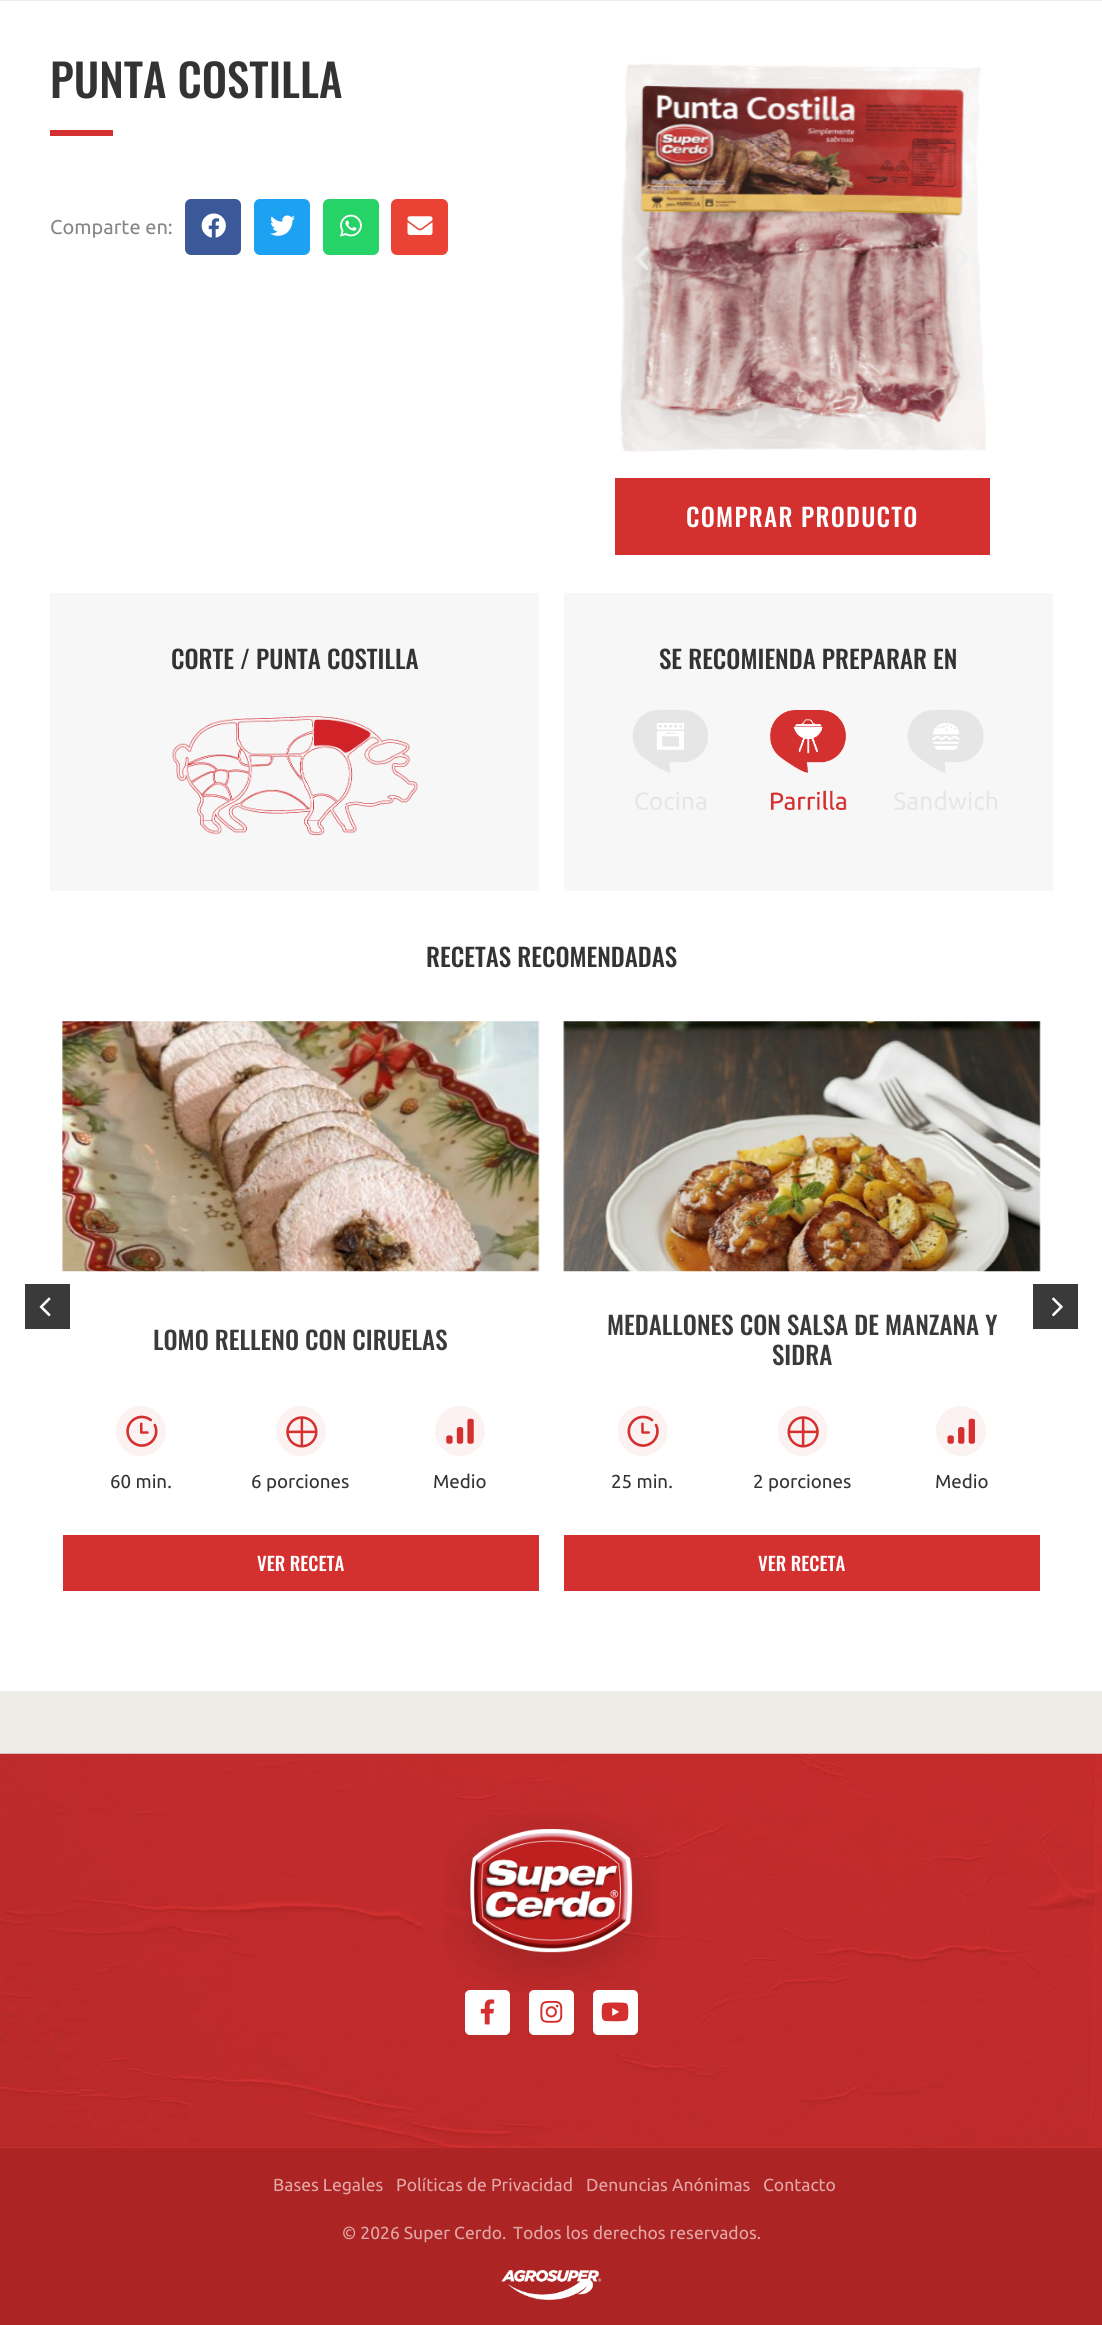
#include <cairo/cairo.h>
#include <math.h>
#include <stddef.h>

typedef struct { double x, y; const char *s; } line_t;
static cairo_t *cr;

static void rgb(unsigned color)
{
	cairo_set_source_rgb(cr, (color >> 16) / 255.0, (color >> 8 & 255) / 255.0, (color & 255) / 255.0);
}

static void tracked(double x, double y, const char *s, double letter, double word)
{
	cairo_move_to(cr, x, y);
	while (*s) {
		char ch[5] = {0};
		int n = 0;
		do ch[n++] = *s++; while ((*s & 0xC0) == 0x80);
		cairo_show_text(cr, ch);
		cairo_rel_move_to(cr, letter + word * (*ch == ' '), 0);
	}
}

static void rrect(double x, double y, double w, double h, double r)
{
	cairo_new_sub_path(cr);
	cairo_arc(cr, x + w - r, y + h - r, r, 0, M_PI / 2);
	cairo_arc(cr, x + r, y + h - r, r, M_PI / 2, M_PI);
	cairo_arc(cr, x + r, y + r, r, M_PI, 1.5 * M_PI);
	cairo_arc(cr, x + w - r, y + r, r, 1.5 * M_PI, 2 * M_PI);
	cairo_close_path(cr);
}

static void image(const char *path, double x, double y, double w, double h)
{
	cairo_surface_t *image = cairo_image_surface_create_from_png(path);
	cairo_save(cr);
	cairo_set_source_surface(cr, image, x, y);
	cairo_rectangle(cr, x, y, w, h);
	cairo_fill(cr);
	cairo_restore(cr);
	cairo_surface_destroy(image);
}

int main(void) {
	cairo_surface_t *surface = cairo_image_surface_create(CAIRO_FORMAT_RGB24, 1102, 2325);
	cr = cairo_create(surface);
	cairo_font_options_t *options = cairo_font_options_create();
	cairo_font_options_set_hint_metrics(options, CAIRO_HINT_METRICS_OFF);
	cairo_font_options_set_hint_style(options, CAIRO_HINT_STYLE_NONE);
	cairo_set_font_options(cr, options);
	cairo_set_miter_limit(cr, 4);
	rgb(0xeeece7);
	cairo_paint(cr);
	rgb(0xffffff);
	cairo_rectangle(cr, 0, 1, 1102, 1690);
	cairo_fill(cr);
	rgb(0xd4302f);
	cairo_rectangle(cr, 50, 130, 63, 6);
	cairo_fill(cr);
	rgb(0x3b5998);
	rrect(185, 199, 56, 56, 6);
	cairo_fill(cr);
	image("img/1.png", 201, 213, 25, 25);
	rgb(0x1da1f2);
	rrect(254, 199, 56, 56, 6);
	cairo_fill(cr);
	image("img/2.png", 270, 215, 25, 21);
	rgb(0x25d366);
	rrect(323, 199, 56, 56, 6);
	cairo_fill(cr);
	image("img/3.png", 340, 214, 22, 23);
	rgb(0xea4335);
	rrect(391, 199, 57, 56, 6);
	cairo_fill(cr);
	image("img/4.png", 407, 216, 26, 19);
	image("img/5.png", 620, 63, 366, 389);
	image("img/6.png", 635, 246, 14, 24);
	image("img/7.png", 956, 247, 13, 21);
	rgb(0xd4302f);
	cairo_rectangle(cr, 615, 478, 375, 77);
	cairo_fill(cr);
	rgb(0xf7f7f7);
	cairo_rectangle(cr, 50, 593, 489, 298);
	cairo_fill(cr);
	image("img/8.png", 172, 716, 246, 120);
	cairo_rectangle(cr, 564, 593, 489, 298);
	cairo_fill(cr);
	image("img/9.png", 632, 710, 76, 100);
	image("img/10.png", 770, 710, 77, 100);
	image("img/11.png", 894, 710, 103, 100);
	rgb(0x3a3a3a);
	cairo_rectangle(cr, 25, 1284, 45, 45);
	cairo_fill(cr);
	image("img/12.png", 39, 1297, 12, 20);
	cairo_rectangle(cr, 1033, 1284, 45, 45);
	cairo_fill(cr);
	image("img/13.png", 1052, 1297, 11, 20);
	image("img/14.png", 62, 1021, 478, 251);
	image("img/15.png", 116, 1406, 50, 50);
	image("img/16.png", 276, 1406, 50, 50);
	image("img/17.png", 435, 1406, 50, 50);
	rgb(0xd4302f);
	cairo_rectangle(cr, 63, 1535, 476, 56);
	cairo_fill(cr);
	image("img/18.png", 563, 1021, 478, 251);
	image("img/19.png", 618, 1406, 50, 50);
	image("img/20.png", 778, 1406, 50, 50);
	image("img/21.png", 936, 1406, 50, 50);
	cairo_rectangle(cr, 564, 1535, 476, 56);
	cairo_fill(cr);
	cairo_rectangle(cr, 0, 2147, 1102, 1);
	cairo_fill(cr);
	image("img/22.png", 0, 1753, 1102, 395);
	image("img/23.png", 443, 1813, 217, 178);
	rgb(0xffffff);
	rrect(465, 1990, 45, 45, 5);
	cairo_fill(cr);
	image("img/24.png", 480, 1999, 15, 26);
	rrect(529, 1990, 45, 45, 5);
	cairo_fill(cr);
	image("img/25.png", 540, 2000, 23, 23);
	rrect(593, 1990, 45, 45, 5);
	cairo_fill(cr);
	image("img/26.png", 601, 2002, 28, 20);
	rgb(0xac2424);
	cairo_rectangle(cr, 0, 2148, 1102, 177);
	cairo_fill(cr);
	image("img/27.png", 501, 2270, 101, 30);
	cairo_select_font_face(cr, "Oswald Medium", CAIRO_FONT_SLANT_NORMAL, CAIRO_FONT_WEIGHT_NORMAL);
	cairo_set_font_size(cr, 45);
	rgb(0x333333);
	cairo_move_to(cr, 50, 98);
	cairo_show_text(cr, "PUNTA COSTILLA");
	cairo_select_font_face(cr, "Ubuntu", CAIRO_FONT_SLANT_NORMAL, CAIRO_FONT_WEIGHT_NORMAL);
	cairo_set_font_size(cr, 20);
	rgb(0x868686);
	cairo_move_to(cr, 50, 234);
	cairo_show_text(cr, "Comparte en:");
	cairo_select_font_face(cr, "Oswald Medium", CAIRO_FONT_SLANT_NORMAL, CAIRO_FONT_WEIGHT_NORMAL);
	cairo_set_font_size(cr, 25);
	rgb(0xffffff);
	tracked(686, 527, "COMPRAR PRODUCTO", 1.25, 0);
	rgb(0x333333);
	{
		static const line_t items[] = {
			{171, 669, "CORTE / PUNTA COSTILLA"},
			{659, 669, "SE RECOMIENDA PREPARAR EN"},
			{426, 967, "RECETAS RECOMENDADAS"},
		};
		for (size_t i = 0; i < sizeof items / sizeof *items; i++) {
			cairo_move_to(cr, items[i].x, items[i].y);
			cairo_show_text(cr, items[i].s);
		}
	}
	rgb(0x3a3a3a);
	cairo_move_to(cr, 153, 1350);
	cairo_show_text(cr, "LOMO RELLENO CON CIRUELAS");
	cairo_select_font_face(cr, "Ubuntu", CAIRO_FONT_SLANT_NORMAL, CAIRO_FONT_WEIGHT_NORMAL);
	cairo_set_font_size(cr, 18.75);
	rgb(0x333333);
	{
		static const line_t items[] = {
			{110, 1488, "60 min."},
			{251, 1488, "6 porciones"},
			{433, 1488, "Medio"},
		};
		for (size_t i = 0; i < sizeof items / sizeof *items; i++) {
			cairo_move_to(cr, items[i].x, items[i].y);
			cairo_show_text(cr, items[i].s);
		}
	}
	cairo_select_font_face(cr, "Oswald Medium", CAIRO_FONT_SLANT_NORMAL, CAIRO_FONT_WEIGHT_NORMAL);
	rgb(0xffffff);
	cairo_move_to(cr, 257, 1571);
	cairo_show_text(cr, "VER RECETA");
	cairo_set_font_size(cr, 25);
	rgb(0x3a3a3a);
	cairo_move_to(cr, 607, 1335);
	cairo_show_text(cr, "MEDALLONES CON SALSA DE MANZANA Y");
	cairo_move_to(cr, 772, 1365);
	cairo_show_text(cr, "SIDRA");
	cairo_select_font_face(cr, "Ubuntu", CAIRO_FONT_SLANT_NORMAL, CAIRO_FONT_WEIGHT_NORMAL);
	cairo_set_font_size(cr, 18.75);
	rgb(0x333333);
	{
		static const line_t items[] = {
			{611, 1488, "25 min."},
			{753, 1488, "2 porciones"},
			{935, 1488, "Medio"},
		};
		for (size_t i = 0; i < sizeof items / sizeof *items; i++) {
			cairo_move_to(cr, items[i].x, items[i].y);
			cairo_show_text(cr, items[i].s);
		}
	}
	cairo_select_font_face(cr, "Oswald Medium", CAIRO_FONT_SLANT_NORMAL, CAIRO_FONT_WEIGHT_NORMAL);
	rgb(0xffffff);
	cairo_move_to(cr, 758, 1571);
	cairo_show_text(cr, "VER RECETA");
	cairo_select_font_face(cr, "Ubuntu", CAIRO_FONT_SLANT_NORMAL, CAIRO_FONT_WEIGHT_NORMAL);
	cairo_set_font_size(cr, 17.5);
	rgb(0xe3a7a7);
	{
		static const line_t items[] = {
			{273, 2191, "Bases Legales"},
			{396, 2191, "Políticas de Privacidad"},
			{586, 2191, "Denuncias Anónimas"},
			{763, 2191, "Contacto"},
			{342, 2239, "© 2026 Super Cerdo."},
			{513, 2239, "Todos los derechos reservados."},
		};
		for (size_t i = 0; i < sizeof items / sizeof *items; i++) {
			cairo_move_to(cr, items[i].x, items[i].y);
			cairo_show_text(cr, items[i].s);
		}
	}
	cairo_surface_write_to_png(surface, "page.png");
	cairo_font_options_destroy(options);
	cairo_destroy(cr);
	cairo_surface_destroy(surface);
	return 0;
}
